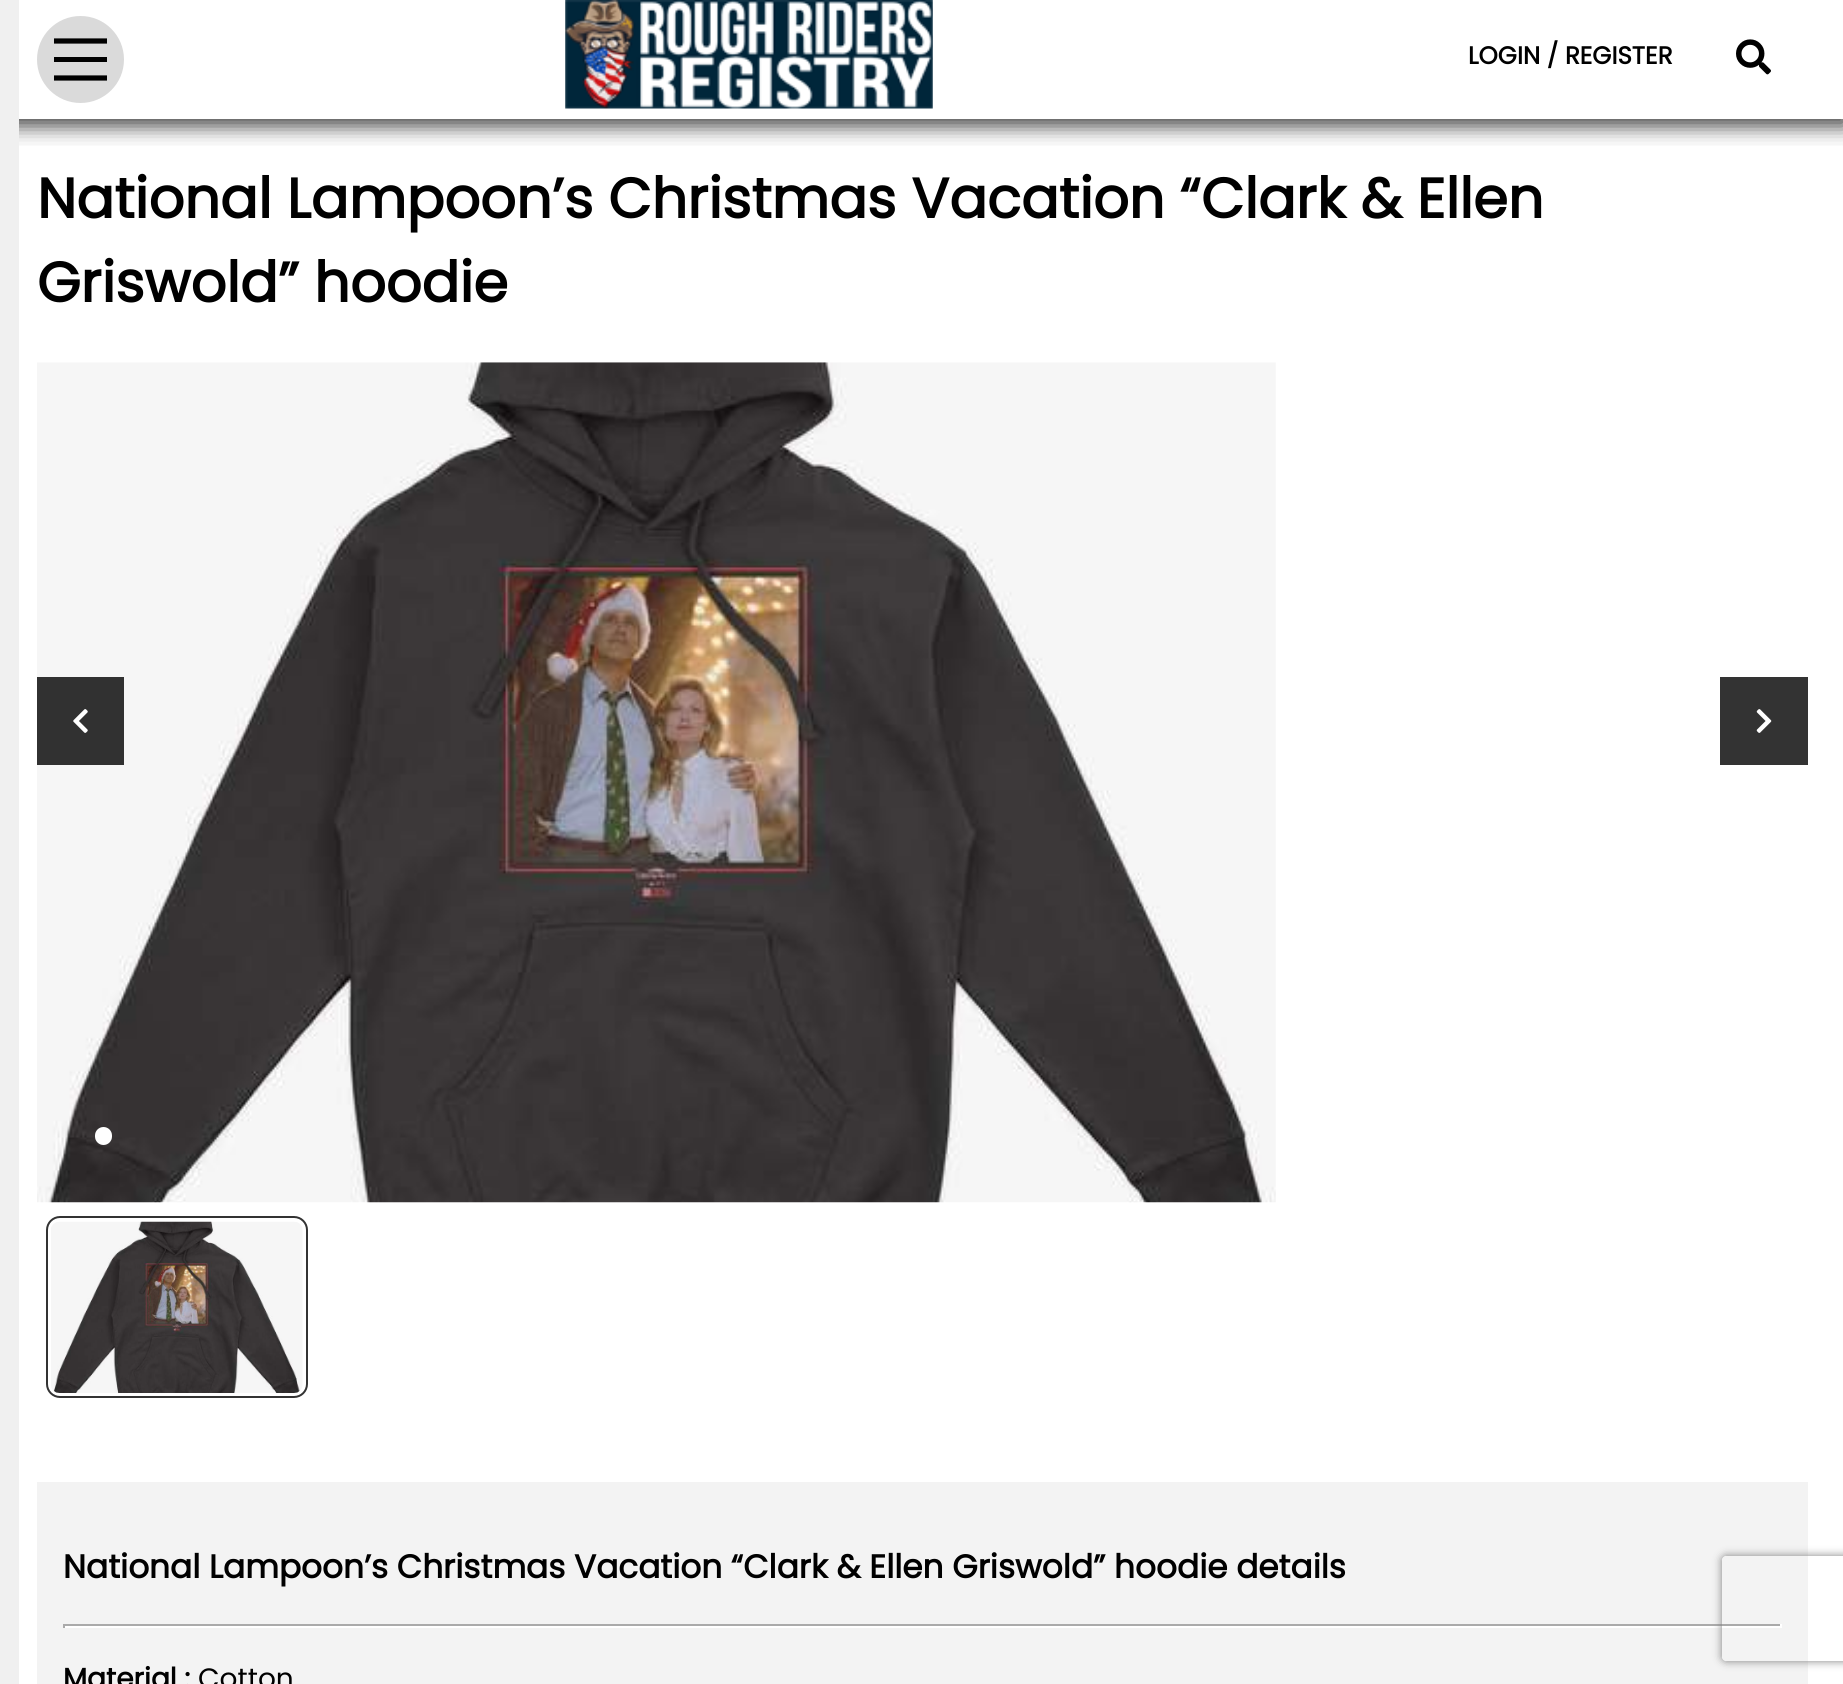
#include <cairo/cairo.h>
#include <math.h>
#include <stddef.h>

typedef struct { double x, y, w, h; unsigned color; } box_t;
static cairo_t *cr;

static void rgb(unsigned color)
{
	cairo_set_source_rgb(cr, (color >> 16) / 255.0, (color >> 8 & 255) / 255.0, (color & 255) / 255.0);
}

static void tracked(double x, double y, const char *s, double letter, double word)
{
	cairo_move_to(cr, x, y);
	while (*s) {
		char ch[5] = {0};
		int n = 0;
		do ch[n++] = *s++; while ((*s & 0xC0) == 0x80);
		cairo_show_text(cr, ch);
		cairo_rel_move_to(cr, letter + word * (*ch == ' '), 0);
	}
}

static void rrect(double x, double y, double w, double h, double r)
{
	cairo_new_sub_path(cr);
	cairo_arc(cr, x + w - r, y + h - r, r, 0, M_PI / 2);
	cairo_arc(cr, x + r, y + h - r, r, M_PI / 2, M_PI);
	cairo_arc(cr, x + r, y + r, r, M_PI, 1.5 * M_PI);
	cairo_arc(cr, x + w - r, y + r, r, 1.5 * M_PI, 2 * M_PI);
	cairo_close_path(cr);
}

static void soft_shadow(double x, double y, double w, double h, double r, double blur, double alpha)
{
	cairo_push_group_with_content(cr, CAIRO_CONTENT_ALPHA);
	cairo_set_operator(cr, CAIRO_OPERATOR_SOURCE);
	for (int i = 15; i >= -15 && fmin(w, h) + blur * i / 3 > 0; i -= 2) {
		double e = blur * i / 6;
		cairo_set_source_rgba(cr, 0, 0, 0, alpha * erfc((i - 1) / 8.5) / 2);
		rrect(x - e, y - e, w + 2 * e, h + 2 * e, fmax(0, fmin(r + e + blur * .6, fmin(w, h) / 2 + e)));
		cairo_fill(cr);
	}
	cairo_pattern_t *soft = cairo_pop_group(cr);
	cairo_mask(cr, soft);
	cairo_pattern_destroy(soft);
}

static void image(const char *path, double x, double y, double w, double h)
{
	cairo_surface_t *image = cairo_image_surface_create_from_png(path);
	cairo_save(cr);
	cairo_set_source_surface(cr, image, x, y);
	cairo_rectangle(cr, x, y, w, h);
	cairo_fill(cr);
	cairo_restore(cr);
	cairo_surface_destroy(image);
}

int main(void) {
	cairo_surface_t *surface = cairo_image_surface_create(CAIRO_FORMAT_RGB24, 1843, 1684);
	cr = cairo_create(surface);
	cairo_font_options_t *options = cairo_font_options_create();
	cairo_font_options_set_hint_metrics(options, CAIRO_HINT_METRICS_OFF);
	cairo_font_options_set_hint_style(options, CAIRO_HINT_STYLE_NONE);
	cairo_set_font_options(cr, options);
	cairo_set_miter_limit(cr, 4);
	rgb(0xffffff);
	cairo_paint(cr);
	cairo_save(cr);
	cairo_rectangle(cr, 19, 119, 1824, 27);
	cairo_clip(cr);
	rgb(0x000000);
	soft_shadow(-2, 4, 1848, 122, 0, 10.5, 0.75);
	cairo_restore(cr);
	rgb(0xf0f0f0);
	cairo_rectangle(cr, 0, 0, 19, 1684);
	cairo_fill(cr);
	rgb(0xdadada);
	cairo_arc(cr, 80.5, 59.5, 43.5, 0, 2 * M_PI);
	cairo_fill(cr);
	cairo_new_path(cr);
	cairo_move_to(cr, 54, 41);
	cairo_line_to(cr, 107, 41);
	rgb(0x000000);
	cairo_set_line_width(cr, 5.2);
	cairo_stroke(cr);
	cairo_rectangle(cr, 54, 57, 53, 5);
	cairo_fill(cr);
	cairo_new_path(cr);
	cairo_move_to(cr, 54, 78);
	cairo_line_to(cr, 107, 78);
	cairo_stroke(cr);
	image("img/1.png", 565, 0, 368, 109);
	image("img/2.png", 1736, 39, 35, 36);
	image("img/3.png", 37, 362, 1239, 841);
	rgb(0x313131);
	cairo_rectangle(cr, 37, 677, 87, 88);
	cairo_fill(cr);
	image("img/4.png", 73, 709, 15, 24);
	rgb(0x333333);
	cairo_rectangle(cr, 1720, 677, 88, 88);
	cairo_fill(cr);
	image("img/5.png", 1756, 709, 16, 24);
	rgb(0xffffff);
	rrect(96, 1128, 15, 16, 7.5);
	cairo_fill_preserve(cr);
	cairo_set_line_width(cr, 2);
	cairo_stroke(cr);
	rrect(47, 1217, 260, 180, 13);
	rgb(0x333333);
	cairo_stroke(cr);
	image("img/6.png", 51, 1221, 252, 172);
	{
		static const box_t items[] = {
			{37, 1482, 1771, 202, 0xf3f3f3},
			{63, 1624, 1719, 2, 0xaaaaaa},
			{1780, 1624, 2, 4, 0xffffff},
			{63, 1626, 1719, 2, 0xffffff},
			{63, 1624, 2, 4, 0xaaaaaa},
		};
		for (size_t i = 0; i < sizeof items / sizeof *items; i++) {
			rgb(items[i].color);
			cairo_rectangle(cr, items[i].x, items[i].y, items[i].w, items[i].h);
			cairo_fill(cr);
		}
	}
	cairo_save(cr);
	cairo_set_fill_rule(cr, CAIRO_FILL_RULE_EVEN_ODD);
	cairo_new_path(cr);
	cairo_move_to(cr, 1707, 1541);
	cairo_line_to(cr, 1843, 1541);
	cairo_line_to(cr, 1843, 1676);
	cairo_line_to(cr, 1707, 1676);
	cairo_close_path(cr);
	cairo_move_to(cr, 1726, 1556);
	cairo_line_to(cr, 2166, 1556);
	cairo_curve_to(cr, 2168, 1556, 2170, 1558, 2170, 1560);
	cairo_line_to(cr, 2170, 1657);
	cairo_curve_to(cr, 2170, 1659, 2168, 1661, 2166, 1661);
	cairo_line_to(cr, 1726, 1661);
	cairo_curve_to(cr, 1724, 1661, 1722, 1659, 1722, 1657);
	cairo_line_to(cr, 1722, 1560);
	cairo_curve_to(cr, 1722, 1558, 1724, 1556, 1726, 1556);
	cairo_close_path(cr);
	cairo_clip(cr);
	rgb(0x808080);
	soft_shadow(1722, 1556, 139, 105, 4, 4.5, 1);
	cairo_restore(cr);
	cairo_select_font_face(cr, "Poppins", CAIRO_FONT_SLANT_NORMAL, CAIRO_FONT_WEIGHT_BOLD);
	cairo_set_font_size(cr, 24.5);
	rgb(0x000000);
	cairo_move_to(cr, 1468, 64);
	cairo_show_text(cr, "LOGIN / REGISTER");
	cairo_set_font_size(cr, 56);
	cairo_move_to(cr, 37, 218);
	cairo_show_text(cr, "National Lampoon’s Christmas Vacation “Clark & Ellen");
	cairo_move_to(cr, 37, 302);
	cairo_show_text(cr, "Griswold” hoodie");
	cairo_set_font_size(cr, 32.75);
	tracked(63, 1578, "National Lampoon’s Christmas Vacation “Clark & Ellen Griswold” hoodie details", 0, -0.1);
	cairo_set_font_size(cr, 28);
	cairo_move_to(cr, 63, 1688);
	cairo_show_text(cr, "Material :");
	cairo_select_font_face(cr, "Poppins", CAIRO_FONT_SLANT_NORMAL, CAIRO_FONT_WEIGHT_NORMAL);
	cairo_move_to(cr, 198, 1688);
	cairo_show_text(cr, "Cotton");
	cairo_surface_write_to_png(surface, "page.png");
	cairo_font_options_destroy(options);
	cairo_destroy(cr);
	cairo_surface_destroy(surface);
	return 0;
}
